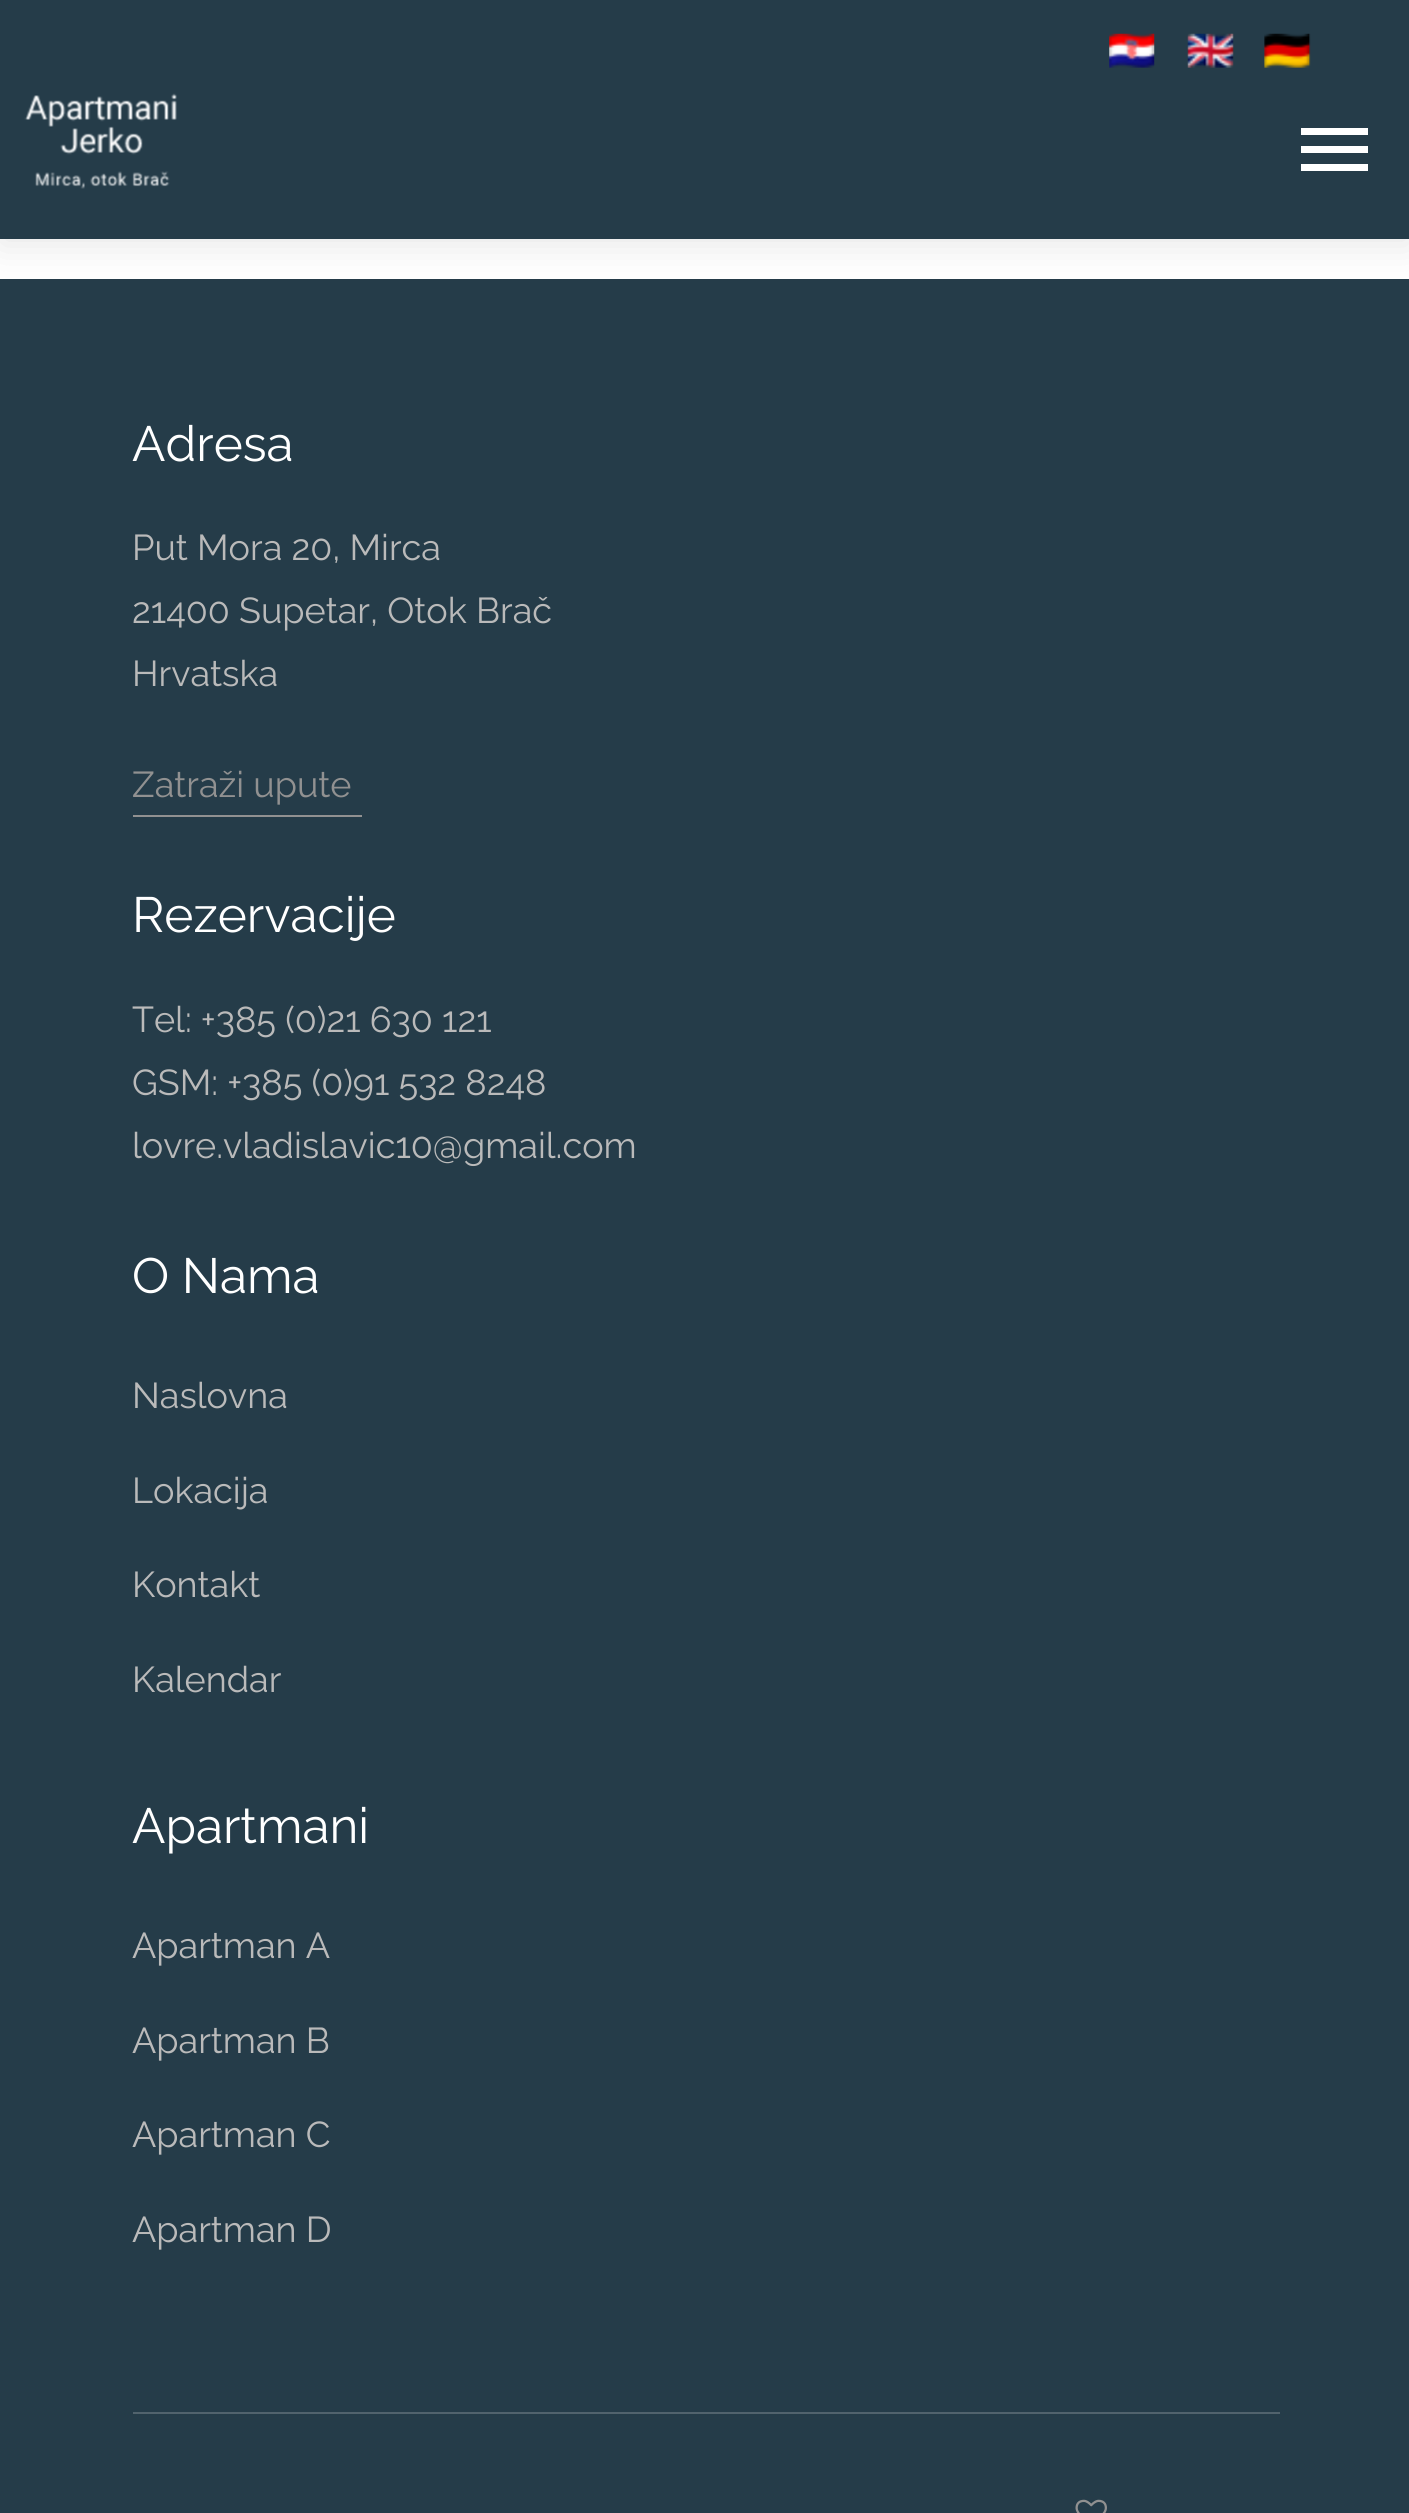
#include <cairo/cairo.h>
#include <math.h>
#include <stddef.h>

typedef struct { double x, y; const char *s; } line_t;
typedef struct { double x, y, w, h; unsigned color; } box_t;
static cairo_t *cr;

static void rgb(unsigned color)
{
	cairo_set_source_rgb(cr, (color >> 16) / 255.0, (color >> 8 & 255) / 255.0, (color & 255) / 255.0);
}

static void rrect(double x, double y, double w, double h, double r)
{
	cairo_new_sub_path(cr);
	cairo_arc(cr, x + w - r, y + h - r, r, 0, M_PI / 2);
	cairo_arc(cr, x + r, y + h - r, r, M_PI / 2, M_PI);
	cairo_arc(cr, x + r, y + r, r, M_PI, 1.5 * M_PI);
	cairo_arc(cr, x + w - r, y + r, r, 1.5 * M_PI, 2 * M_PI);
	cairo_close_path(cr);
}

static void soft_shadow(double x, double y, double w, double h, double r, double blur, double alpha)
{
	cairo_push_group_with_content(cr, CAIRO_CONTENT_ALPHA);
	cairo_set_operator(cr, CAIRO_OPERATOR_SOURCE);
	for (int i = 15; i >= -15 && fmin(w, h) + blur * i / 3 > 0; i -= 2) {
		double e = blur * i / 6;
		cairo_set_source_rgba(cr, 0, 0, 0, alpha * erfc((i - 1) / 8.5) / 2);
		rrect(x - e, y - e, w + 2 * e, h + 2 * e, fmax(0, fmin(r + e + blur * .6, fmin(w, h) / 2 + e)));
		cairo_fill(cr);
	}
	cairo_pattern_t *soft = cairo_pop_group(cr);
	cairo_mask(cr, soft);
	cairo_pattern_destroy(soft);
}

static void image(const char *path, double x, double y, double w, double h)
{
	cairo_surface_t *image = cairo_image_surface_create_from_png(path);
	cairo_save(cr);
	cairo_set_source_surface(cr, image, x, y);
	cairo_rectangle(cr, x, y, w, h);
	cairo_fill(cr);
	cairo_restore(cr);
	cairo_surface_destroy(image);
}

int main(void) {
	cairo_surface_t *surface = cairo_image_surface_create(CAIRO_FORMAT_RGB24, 1409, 2513);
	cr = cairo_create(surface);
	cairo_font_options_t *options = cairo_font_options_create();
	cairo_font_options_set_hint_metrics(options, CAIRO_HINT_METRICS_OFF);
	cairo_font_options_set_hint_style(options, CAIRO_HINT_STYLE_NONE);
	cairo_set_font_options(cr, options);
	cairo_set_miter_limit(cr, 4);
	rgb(0xffffff);
	cairo_paint(cr);
	rgb(0x253c49);
	cairo_rectangle(cr, 0, 279, 1409, 2234);
	cairo_fill(cr);
	rgb(0x000000);
	soft_shadow(0, 7, 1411, 238, 0, 18, 0.1);
	rgb(0x253c49);
	cairo_rectangle(cr, 0, 0, 1409, 239);
	cairo_fill(cr);
	image("img/1.png", 1109, 33, 46, 35);
	image("img/2.png", 1187, 33, 47, 35);
	image("img/3.png", 1264, 33, 47, 35);
	image("img/4.png", 24, 93, 153, 96);
	{
		static const box_t items[] = {
			{1301, 128, 67, 7, 0xffffff},
			{1301, 146, 67, 7, 0xffffff},
			{1301, 164, 67, 7, 0xffffff},
			{133, 815, 229, 2, 0x919191},
			{133, 2412, 1147, 2, 0x51636d},
		};
		for (size_t i = 0; i < sizeof items / sizeof *items; i++) {
			rgb(items[i].color);
			cairo_rectangle(cr, items[i].x, items[i].y, items[i].w, items[i].h);
			cairo_fill(cr);
		}
	}
	image("img/5.png", 1075, 2499, 32, 14);
	cairo_select_font_face(cr, "Raleway", CAIRO_FONT_SLANT_NORMAL, CAIRO_FONT_WEIGHT_NORMAL);
	cairo_set_font_size(cr, 49.5);
	rgb(0xffffff);
	cairo_move_to(cr, 132, 461);
	cairo_show_text(cr, "Adresa");
	cairo_set_font_size(cr, 36);
	rgb(0xbababa);
	{
		static const line_t items[] = {
			{132, 560, "Put Mora 20, Mirca"},
			{132, 623, "21400 Supetar, Otok Brač"},
			{132, 686, "Hrvatska"},
		};
		for (size_t i = 0; i < sizeof items / sizeof *items; i++) {
			cairo_move_to(cr, items[i].x, items[i].y);
			cairo_show_text(cr, items[i].s);
		}
	}
	rgb(0x919191);
	cairo_move_to(cr, 132, 797);
	cairo_show_text(cr, "Zatraži upute");
	cairo_set_font_size(cr, 49.5);
	rgb(0xffffff);
	cairo_move_to(cr, 132, 932);
	cairo_show_text(cr, "Rezervacije");
	cairo_set_font_size(cr, 36);
	rgb(0xbababa);
	{
		static const line_t items[] = {
			{132, 1032, "Tel: +385 (0)21 630 121"},
			{132, 1095, "GSM: +385 (0)91 532 8248"},
			{132, 1158, "lovre.vladislavic10@gmail.com"},
		};
		for (size_t i = 0; i < sizeof items / sizeof *items; i++) {
			cairo_move_to(cr, items[i].x, items[i].y);
			cairo_show_text(cr, items[i].s);
		}
	}
	cairo_set_font_size(cr, 49.5);
	rgb(0xffffff);
	cairo_move_to(cr, 132, 1293);
	cairo_show_text(cr, "O Nama");
	cairo_set_font_size(cr, 36);
	rgb(0xbababa);
	{
		static const line_t items[] = {
			{132, 1408, "Naslovna"},
			{132, 1503, "Lokacija"},
			{132, 1597, "Kontakt"},
			{132, 1692, "Kalendar"},
		};
		for (size_t i = 0; i < sizeof items / sizeof *items; i++) {
			cairo_move_to(cr, items[i].x, items[i].y);
			cairo_show_text(cr, items[i].s);
		}
	}
	cairo_set_font_size(cr, 49.5);
	rgb(0xffffff);
	cairo_move_to(cr, 132, 1843);
	cairo_show_text(cr, "Apartmani");
	cairo_set_font_size(cr, 36);
	rgb(0xbababa);
	{
		static const line_t items[] = {
			{132, 1958, "Apartman A"},
			{132, 2053, "Apartman B"},
			{132, 2147, "Apartman C"},
			{132, 2242, "Apartman D"},
		};
		for (size_t i = 0; i < sizeof items / sizeof *items; i++) {
			cairo_move_to(cr, items[i].x, items[i].y);
			cairo_show_text(cr, items[i].s);
		}
	}
	cairo_surface_write_to_png(surface, "page.png");
	cairo_font_options_destroy(options);
	cairo_destroy(cr);
	cairo_surface_destroy(surface);
	return 0;
}
